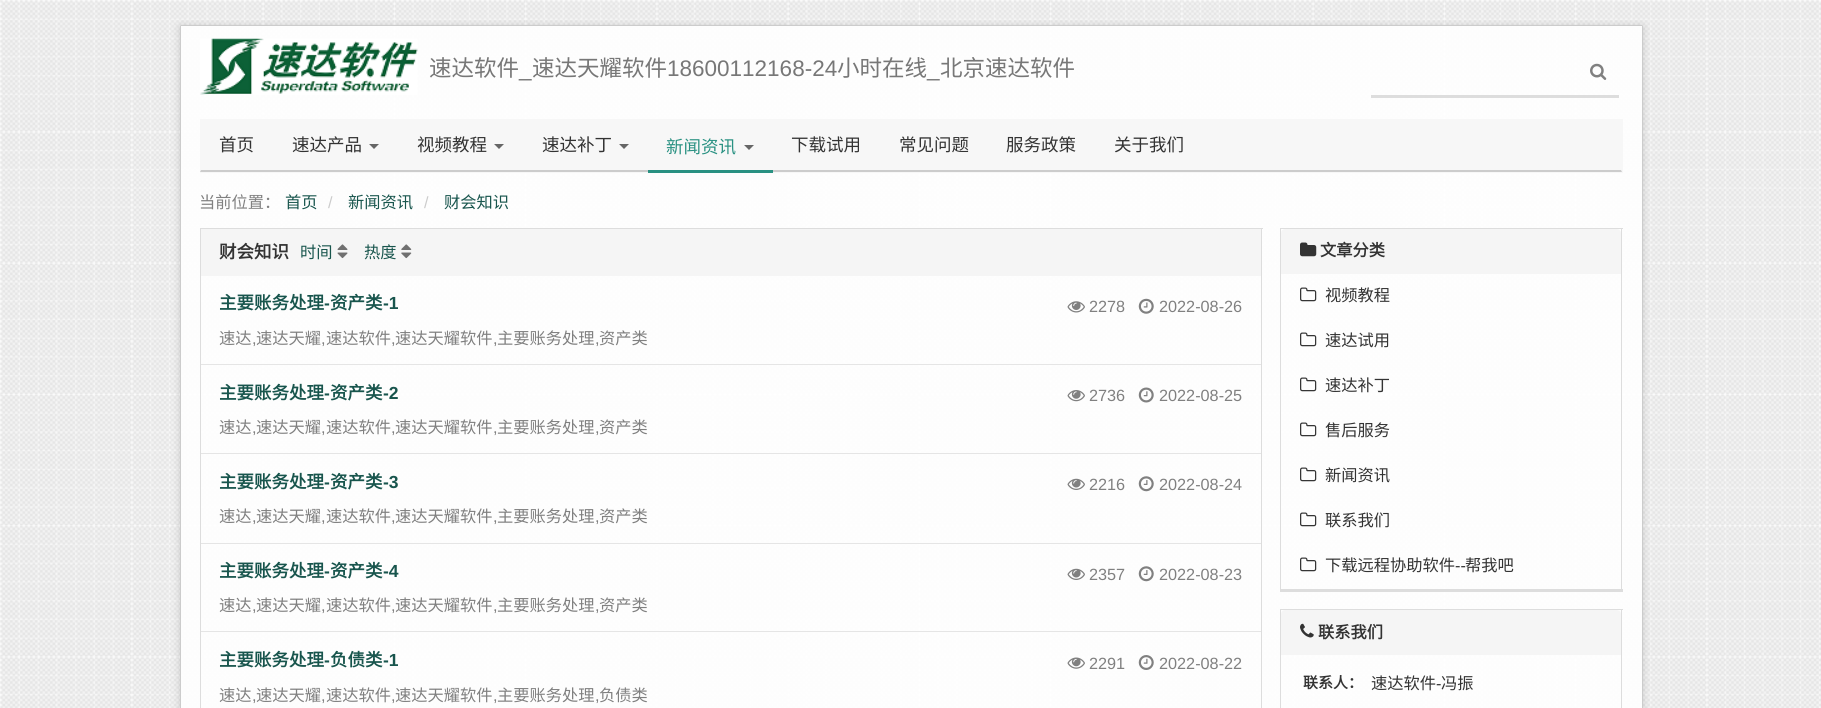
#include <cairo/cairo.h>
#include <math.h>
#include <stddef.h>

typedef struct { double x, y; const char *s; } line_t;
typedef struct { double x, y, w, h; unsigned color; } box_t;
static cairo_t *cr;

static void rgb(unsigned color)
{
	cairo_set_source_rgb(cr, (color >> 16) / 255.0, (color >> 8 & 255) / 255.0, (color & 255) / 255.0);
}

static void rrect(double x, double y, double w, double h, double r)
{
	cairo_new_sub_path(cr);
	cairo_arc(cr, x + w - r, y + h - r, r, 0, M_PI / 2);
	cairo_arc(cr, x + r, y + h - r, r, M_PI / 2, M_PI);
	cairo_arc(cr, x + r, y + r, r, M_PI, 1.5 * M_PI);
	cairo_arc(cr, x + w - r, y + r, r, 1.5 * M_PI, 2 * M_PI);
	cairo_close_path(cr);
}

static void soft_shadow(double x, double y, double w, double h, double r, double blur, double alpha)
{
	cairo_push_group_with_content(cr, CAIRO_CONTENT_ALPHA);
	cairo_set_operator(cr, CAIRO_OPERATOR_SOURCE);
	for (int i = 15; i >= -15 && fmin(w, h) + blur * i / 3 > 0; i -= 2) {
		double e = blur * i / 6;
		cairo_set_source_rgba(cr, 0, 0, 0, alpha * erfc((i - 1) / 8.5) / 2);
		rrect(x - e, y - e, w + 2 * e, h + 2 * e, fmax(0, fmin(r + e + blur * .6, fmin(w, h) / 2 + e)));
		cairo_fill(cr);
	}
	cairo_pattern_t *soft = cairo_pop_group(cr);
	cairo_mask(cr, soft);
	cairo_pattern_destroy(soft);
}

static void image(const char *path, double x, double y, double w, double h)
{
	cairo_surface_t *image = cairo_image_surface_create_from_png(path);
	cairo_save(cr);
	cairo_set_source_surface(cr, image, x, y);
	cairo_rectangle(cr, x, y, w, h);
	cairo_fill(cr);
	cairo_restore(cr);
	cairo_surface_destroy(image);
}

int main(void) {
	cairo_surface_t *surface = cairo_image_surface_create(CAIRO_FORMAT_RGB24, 1821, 708);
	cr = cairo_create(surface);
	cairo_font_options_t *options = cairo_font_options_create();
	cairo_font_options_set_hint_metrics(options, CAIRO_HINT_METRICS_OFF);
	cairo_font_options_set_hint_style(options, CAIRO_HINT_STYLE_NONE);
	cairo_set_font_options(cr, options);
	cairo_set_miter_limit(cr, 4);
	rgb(0xffffff);
	cairo_paint(cr);
	image("img/1.png", 0, 0, 1821, 708);
	cairo_save(cr);
	cairo_set_fill_rule(cr, CAIRO_FILL_RULE_EVEN_ODD);
	cairo_new_path(cr);
	cairo_move_to(cr, 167, 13);
	cairo_line_to(cr, 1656, 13);
	cairo_line_to(cr, 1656, 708);
	cairo_line_to(cr, 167, 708);
	cairo_close_path(cr);
	cairo_move_to(cr, 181, 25);
	cairo_line_to(cr, 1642, 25);
	cairo_curve_to(cr, 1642.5, 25, 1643, 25.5, 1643, 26);
	cairo_line_to(cr, 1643, 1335);
	cairo_curve_to(cr, 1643, 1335.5, 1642.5, 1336, 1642, 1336);
	cairo_line_to(cr, 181, 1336);
	cairo_curve_to(cr, 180.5, 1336, 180, 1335.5, 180, 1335);
	cairo_line_to(cr, 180, 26);
	cairo_curve_to(cr, 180, 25.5, 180.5, 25, 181, 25);
	cairo_close_path(cr);
	cairo_clip(cr);
	rgb(0x000000);
	soft_shadow(180, 26, 1463, 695, 1, 4, 0.15);
	cairo_restore(cr);
	cairo_set_source_rgba(cr, 1, 1, 1, 0.9);
	rrect(180.5, 25.5, 1462, 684, 0.5);
	cairo_fill_preserve(cr);
	rgb(0xcccccc);
	cairo_set_line_width(cr, 1);
	cairo_stroke(cr);
	image("img/2.png", 200, 38, 218, 57);
	image("img/3.png", 1590, 63, 17, 17);
	rgb(0xdddddd);
	cairo_rectangle(cr, 1371, 95, 248, 3);
	cairo_fill(cr);
	rgb(0xf7f7f7);
	cairo_rectangle(cr, 200, 119, 1423, 54);
	cairo_fill(cr);
	rgb(0xcccccc);
	cairo_new_path(cr);
	cairo_move_to(cr, 1622, 172);
	cairo_line_to(cr, 200, 172);
	cairo_line_to(cr, 201, 170);
	cairo_line_to(cr, 1621, 170);
	cairo_close_path(cr);
	cairo_fill(cr);
	rgb(0x666666);
	cairo_new_path(cr);
	cairo_move_to(cr, 369, 144);
	cairo_line_to(cr, 379, 144);
	cairo_line_to(cr, 374, 149);
	cairo_close_path(cr);
	cairo_fill(cr);
	cairo_new_path(cr);
	cairo_move_to(cr, 494, 144);
	cairo_line_to(cr, 504, 144);
	cairo_line_to(cr, 499, 149);
	cairo_close_path(cr);
	cairo_fill(cr);
	cairo_new_path(cr);
	cairo_move_to(cr, 619, 144);
	cairo_line_to(cr, 629, 144);
	cairo_line_to(cr, 624, 149);
	cairo_close_path(cr);
	cairo_fill(cr);
	rgb(0x299182);
	cairo_rectangle(cr, 648, 170, 125, 3);
	cairo_fill(cr);
	rgb(0x666666);
	cairo_new_path(cr);
	cairo_move_to(cr, 744, 145);
	cairo_line_to(cr, 754, 145);
	cairo_line_to(cr, 749, 150);
	cairo_close_path(cr);
	cairo_fill(cr);
	{
		static const box_t items[] = {
			{200, 228, 1063, 1, 0xdddddd},
			{1261, 228, 1, 480, 0xdddddd},
			{200, 228, 1, 480, 0xdddddd},
			{201, 229, 1060, 47, 0xf5f5f5},
		};
		for (size_t i = 0; i < sizeof items / sizeof *items; i++) {
			rgb(items[i].color);
			cairo_rectangle(cr, items[i].x, items[i].y, items[i].w, items[i].h);
			cairo_fill(cr);
		}
	}
	image("img/4.png", 337, 244, 11, 15);
	image("img/5.png", 401, 244, 11, 15);
	rgb(0xe5e5e5);
	cairo_rectangle(cr, 201, 364, 1060, 1);
	cairo_fill(cr);
	image("img/6.png", 1067, 301, 18, 12);
	image("img/7.png", 1138, 298, 16, 16);
	cairo_rectangle(cr, 201, 453, 1060, 1);
	cairo_fill(cr);
	image("img/8.png", 1067, 390, 18, 12);
	image("img/9.png", 1138, 387, 16, 16);
	cairo_rectangle(cr, 201, 543, 1060, 1);
	cairo_fill(cr);
	image("img/10.png", 1067, 478, 18, 12);
	image("img/11.png", 1138, 476, 16, 16);
	cairo_rectangle(cr, 201, 631, 1060, 1);
	cairo_fill(cr);
	image("img/10.png", 1067, 568, 18, 12);
	image("img/11.png", 1138, 566, 16, 16);
	image("img/12.png", 1067, 657, 18, 12);
	image("img/13.png", 1138, 655, 16, 15);
	{
		static const box_t items[] = {
			{1280, 228, 343, 1, 0xdddddd},
			{1621, 228, 1, 363, 0xdddddd},
			{1280, 589, 343, 3, 0xdddddd},
			{1280, 228, 1, 363, 0xdddddd},
		};
		for (size_t i = 0; i < sizeof items / sizeof *items; i++) {
			rgb(items[i].color);
			cairo_rectangle(cr, items[i].x, items[i].y, items[i].w, items[i].h);
			cairo_fill(cr);
		}
	}
	rgb(0xf5f5f5);
	cairo_new_path(cr);
	cairo_move_to(cr, 1285, 229);
	cairo_line_to(cr, 1617, 229);
	cairo_curve_to(cr, 1619, 229, 1621, 231, 1621, 233);
	cairo_line_to(cr, 1621, 274);
	cairo_line_to(cr, 1281, 274);
	cairo_line_to(cr, 1281, 233);
	cairo_curve_to(cr, 1281, 231, 1283, 229, 1285, 229);
	cairo_close_path(cr);
	cairo_fill(cr);
	image("img/14.png", 1300, 242, 17, 15);
	image("img/15.png", 1300, 287, 17, 15);
	image("img/15.png", 1300, 332, 17, 15);
	image("img/15.png", 1300, 377, 17, 15);
	image("img/15.png", 1300, 422, 17, 15);
	image("img/15.png", 1300, 467, 17, 15);
	image("img/15.png", 1300, 512, 17, 15);
	image("img/15.png", 1300, 557, 17, 15);
	{
		static const box_t items[] = {
			{1280, 609, 343, 1, 0xdddddd},
			{1621, 609, 1, 99, 0xdddddd},
			{1280, 609, 1, 99, 0xdddddd},
		};
		for (size_t i = 0; i < sizeof items / sizeof *items; i++) {
			rgb(items[i].color);
			cairo_rectangle(cr, items[i].x, items[i].y, items[i].w, items[i].h);
			cairo_fill(cr);
		}
	}
	rgb(0xf5f5f5);
	cairo_new_path(cr);
	cairo_move_to(cr, 1285, 610);
	cairo_line_to(cr, 1617, 610);
	cairo_curve_to(cr, 1619, 610, 1621, 612, 1621, 614);
	cairo_line_to(cr, 1621, 655);
	cairo_line_to(cr, 1281, 655);
	cairo_line_to(cr, 1281, 614);
	cairo_curve_to(cr, 1281, 612, 1283, 610, 1285, 610);
	cairo_close_path(cr);
	cairo_fill(cr);
	image("img/16.png", 1300, 623, 14, 15);
	cairo_select_font_face(cr, "Noto Sans CJK SC", CAIRO_FONT_SLANT_NORMAL, CAIRO_FONT_WEIGHT_NORMAL);
	cairo_set_font_size(cr, 22.5);
	rgb(0x777777);
	cairo_move_to(cr, 429, 76);
	cairo_show_text(cr, "速达软件");
	cairo_move_to(cr, 532, 76);
	cairo_show_text(cr, "速达天耀软件");
	cairo_select_font_face(cr, "Liberation Sans", CAIRO_FONT_SLANT_NORMAL, CAIRO_FONT_WEIGHT_NORMAL);
	cairo_move_to(cr, 667, 76);
	cairo_show_text(cr, "18600112168-24");
	cairo_select_font_face(cr, "Noto Sans CJK SC", CAIRO_FONT_SLANT_NORMAL, CAIRO_FONT_WEIGHT_NORMAL);
	cairo_move_to(cr, 837, 76);
	cairo_show_text(cr, "小时在线");
	cairo_move_to(cr, 940, 76);
	cairo_show_text(cr, "北京速达软件");
	cairo_select_font_face(cr, "Liberation Sans", CAIRO_FONT_SLANT_NORMAL, CAIRO_FONT_WEIGHT_NORMAL);
	cairo_move_to(cr, 519, 76);
	cairo_show_text(cr, "_");
	cairo_move_to(cr, 927, 76);
	cairo_show_text(cr, "_");
	cairo_select_font_face(cr, "Noto Sans CJK SC", CAIRO_FONT_SLANT_NORMAL, CAIRO_FONT_WEIGHT_NORMAL);
	cairo_set_font_size(cr, 17.5);
	rgb(0x333333);
	{
		static const line_t items[] = {
			{219, 151, "首页"},
			{292, 151, "速达产品"},
			{417, 151, "视频教程"},
			{542, 151, "速达补丁"},
		};
		for (size_t i = 0; i < sizeof items / sizeof *items; i++) {
			cairo_move_to(cr, items[i].x, items[i].y);
			cairo_show_text(cr, items[i].s);
		}
	}
	rgb(0x299182);
	cairo_move_to(cr, 666, 153);
	cairo_show_text(cr, "新闻资讯");
	rgb(0x333333);
	{
		static const line_t items[] = {
			{791, 151, "下载试用"},
			{899, 151, "常见问题"},
			{1006, 151, "服务政策"},
			{1114, 151, "关于我们"},
		};
		for (size_t i = 0; i < sizeof items / sizeof *items; i++) {
			cairo_move_to(cr, items[i].x, items[i].y);
			cairo_show_text(cr, items[i].s);
		}
	}
	cairo_set_font_size(cr, 16.25);
	rgb(0x808080);
	cairo_move_to(cr, 199, 208);
	cairo_show_text(cr, "当前位置：");
	rgb(0x18554d);
	cairo_move_to(cr, 285, 208);
	cairo_show_text(cr, "首页");
	cairo_select_font_face(cr, "Liberation Sans", CAIRO_FONT_SLANT_NORMAL, CAIRO_FONT_WEIGHT_NORMAL);
	rgb(0xcccccc);
	cairo_move_to(cr, 328, 208);
	cairo_show_text(cr, "/");
	cairo_select_font_face(cr, "Noto Sans CJK SC", CAIRO_FONT_SLANT_NORMAL, CAIRO_FONT_WEIGHT_NORMAL);
	rgb(0x18554d);
	cairo_move_to(cr, 348, 208);
	cairo_show_text(cr, "新闻资讯");
	cairo_select_font_face(cr, "Liberation Sans", CAIRO_FONT_SLANT_NORMAL, CAIRO_FONT_WEIGHT_NORMAL);
	rgb(0xcccccc);
	cairo_move_to(cr, 424, 208);
	cairo_show_text(cr, "/");
	cairo_select_font_face(cr, "Noto Sans CJK SC", CAIRO_FONT_SLANT_NORMAL, CAIRO_FONT_WEIGHT_NORMAL);
	rgb(0x18554d);
	cairo_move_to(cr, 444, 208);
	cairo_show_text(cr, "财会知识");
	cairo_select_font_face(cr, "Noto Sans CJK SC", CAIRO_FONT_SLANT_NORMAL, CAIRO_FONT_WEIGHT_BOLD);
	cairo_set_font_size(cr, 17.5);
	rgb(0x333333);
	cairo_move_to(cr, 219, 258);
	cairo_show_text(cr, "财会知识");
	cairo_select_font_face(cr, "Noto Sans CJK SC", CAIRO_FONT_SLANT_NORMAL, CAIRO_FONT_WEIGHT_NORMAL);
	cairo_set_font_size(cr, 16.25);
	rgb(0x18554d);
	cairo_move_to(cr, 300, 258);
	cairo_show_text(cr, "时间");
	cairo_move_to(cr, 364, 258);
	cairo_show_text(cr, "热度");
	cairo_select_font_face(cr, "Noto Sans CJK SC", CAIRO_FONT_SLANT_NORMAL, CAIRO_FONT_WEIGHT_BOLD);
	cairo_set_font_size(cr, 17.5);
	cairo_move_to(cr, 219, 309);
	cairo_show_text(cr, "主要账务处理");
	cairo_select_font_face(cr, "Liberation Sans", CAIRO_FONT_SLANT_NORMAL, CAIRO_FONT_WEIGHT_BOLD);
	cairo_move_to(cr, 324, 309);
	cairo_show_text(cr, "-");
	cairo_select_font_face(cr, "Noto Sans CJK SC", CAIRO_FONT_SLANT_NORMAL, CAIRO_FONT_WEIGHT_BOLD);
	cairo_move_to(cr, 330, 309);
	cairo_show_text(cr, "资产类");
	cairo_select_font_face(cr, "Liberation Sans", CAIRO_FONT_SLANT_NORMAL, CAIRO_FONT_WEIGHT_BOLD);
	cairo_move_to(cr, 383, 309);
	cairo_show_text(cr, "-1");
	cairo_select_font_face(cr, "Liberation Sans", CAIRO_FONT_SLANT_NORMAL, CAIRO_FONT_WEIGHT_NORMAL);
	cairo_set_font_size(cr, 16.25);
	rgb(0x808080);
	cairo_move_to(cr, 1089, 312);
	cairo_show_text(cr, "2278");
	cairo_move_to(cr, 1159, 312);
	cairo_show_text(cr, "2022-08-26");
	cairo_select_font_face(cr, "Noto Sans CJK SC", CAIRO_FONT_SLANT_NORMAL, CAIRO_FONT_WEIGHT_NORMAL);
	cairo_move_to(cr, 219, 344);
	cairo_show_text(cr, "速达");
	cairo_select_font_face(cr, "Liberation Sans", CAIRO_FONT_SLANT_NORMAL, CAIRO_FONT_WEIGHT_NORMAL);
	cairo_move_to(cr, 252, 344);
	cairo_show_text(cr, ",");
	cairo_select_font_face(cr, "Noto Sans CJK SC", CAIRO_FONT_SLANT_NORMAL, CAIRO_FONT_WEIGHT_NORMAL);
	cairo_move_to(cr, 256, 344);
	cairo_show_text(cr, "速达天耀");
	cairo_select_font_face(cr, "Liberation Sans", CAIRO_FONT_SLANT_NORMAL, CAIRO_FONT_WEIGHT_NORMAL);
	cairo_move_to(cr, 321, 344);
	cairo_show_text(cr, ",");
	cairo_select_font_face(cr, "Noto Sans CJK SC", CAIRO_FONT_SLANT_NORMAL, CAIRO_FONT_WEIGHT_NORMAL);
	cairo_move_to(cr, 326, 344);
	cairo_show_text(cr, "速达软件");
	cairo_select_font_face(cr, "Liberation Sans", CAIRO_FONT_SLANT_NORMAL, CAIRO_FONT_WEIGHT_NORMAL);
	cairo_move_to(cr, 391, 344);
	cairo_show_text(cr, ",");
	cairo_select_font_face(cr, "Noto Sans CJK SC", CAIRO_FONT_SLANT_NORMAL, CAIRO_FONT_WEIGHT_NORMAL);
	cairo_move_to(cr, 395, 344);
	cairo_show_text(cr, "速达天耀软件");
	cairo_select_font_face(cr, "Liberation Sans", CAIRO_FONT_SLANT_NORMAL, CAIRO_FONT_WEIGHT_NORMAL);
	cairo_move_to(cr, 493, 344);
	cairo_show_text(cr, ",");
	cairo_select_font_face(cr, "Noto Sans CJK SC", CAIRO_FONT_SLANT_NORMAL, CAIRO_FONT_WEIGHT_NORMAL);
	cairo_move_to(cr, 497, 344);
	cairo_show_text(cr, "主要账务处理");
	cairo_select_font_face(cr, "Liberation Sans", CAIRO_FONT_SLANT_NORMAL, CAIRO_FONT_WEIGHT_NORMAL);
	cairo_move_to(cr, 595, 344);
	cairo_show_text(cr, ",");
	cairo_select_font_face(cr, "Noto Sans CJK SC", CAIRO_FONT_SLANT_NORMAL, CAIRO_FONT_WEIGHT_NORMAL);
	cairo_move_to(cr, 599, 344);
	cairo_show_text(cr, "资产类");
	cairo_select_font_face(cr, "Noto Sans CJK SC", CAIRO_FONT_SLANT_NORMAL, CAIRO_FONT_WEIGHT_BOLD);
	cairo_set_font_size(cr, 17.5);
	rgb(0x18554d);
	cairo_move_to(cr, 219, 399);
	cairo_show_text(cr, "主要账务处理");
	cairo_select_font_face(cr, "Liberation Sans", CAIRO_FONT_SLANT_NORMAL, CAIRO_FONT_WEIGHT_BOLD);
	cairo_move_to(cr, 324, 399);
	cairo_show_text(cr, "-");
	cairo_select_font_face(cr, "Noto Sans CJK SC", CAIRO_FONT_SLANT_NORMAL, CAIRO_FONT_WEIGHT_BOLD);
	cairo_move_to(cr, 330, 399);
	cairo_show_text(cr, "资产类");
	cairo_select_font_face(cr, "Liberation Sans", CAIRO_FONT_SLANT_NORMAL, CAIRO_FONT_WEIGHT_BOLD);
	cairo_move_to(cr, 383, 399);
	cairo_show_text(cr, "-2");
	cairo_select_font_face(cr, "Liberation Sans", CAIRO_FONT_SLANT_NORMAL, CAIRO_FONT_WEIGHT_NORMAL);
	cairo_set_font_size(cr, 16.25);
	rgb(0x808080);
	cairo_move_to(cr, 1089, 401);
	cairo_show_text(cr, "2736");
	cairo_move_to(cr, 1159, 401);
	cairo_show_text(cr, "2022-08-25");
	cairo_select_font_face(cr, "Noto Sans CJK SC", CAIRO_FONT_SLANT_NORMAL, CAIRO_FONT_WEIGHT_NORMAL);
	cairo_move_to(cr, 219, 433);
	cairo_show_text(cr, "速达");
	cairo_select_font_face(cr, "Liberation Sans", CAIRO_FONT_SLANT_NORMAL, CAIRO_FONT_WEIGHT_NORMAL);
	cairo_move_to(cr, 252, 433);
	cairo_show_text(cr, ",");
	cairo_select_font_face(cr, "Noto Sans CJK SC", CAIRO_FONT_SLANT_NORMAL, CAIRO_FONT_WEIGHT_NORMAL);
	cairo_move_to(cr, 256, 433);
	cairo_show_text(cr, "速达天耀");
	cairo_select_font_face(cr, "Liberation Sans", CAIRO_FONT_SLANT_NORMAL, CAIRO_FONT_WEIGHT_NORMAL);
	cairo_move_to(cr, 321, 433);
	cairo_show_text(cr, ",");
	cairo_select_font_face(cr, "Noto Sans CJK SC", CAIRO_FONT_SLANT_NORMAL, CAIRO_FONT_WEIGHT_NORMAL);
	cairo_move_to(cr, 326, 433);
	cairo_show_text(cr, "速达软件");
	cairo_select_font_face(cr, "Liberation Sans", CAIRO_FONT_SLANT_NORMAL, CAIRO_FONT_WEIGHT_NORMAL);
	cairo_move_to(cr, 391, 433);
	cairo_show_text(cr, ",");
	cairo_select_font_face(cr, "Noto Sans CJK SC", CAIRO_FONT_SLANT_NORMAL, CAIRO_FONT_WEIGHT_NORMAL);
	cairo_move_to(cr, 395, 433);
	cairo_show_text(cr, "速达天耀软件");
	cairo_select_font_face(cr, "Liberation Sans", CAIRO_FONT_SLANT_NORMAL, CAIRO_FONT_WEIGHT_NORMAL);
	cairo_move_to(cr, 493, 433);
	cairo_show_text(cr, ",");
	cairo_select_font_face(cr, "Noto Sans CJK SC", CAIRO_FONT_SLANT_NORMAL, CAIRO_FONT_WEIGHT_NORMAL);
	cairo_move_to(cr, 497, 433);
	cairo_show_text(cr, "主要账务处理");
	cairo_select_font_face(cr, "Liberation Sans", CAIRO_FONT_SLANT_NORMAL, CAIRO_FONT_WEIGHT_NORMAL);
	cairo_move_to(cr, 595, 433);
	cairo_show_text(cr, ",");
	cairo_select_font_face(cr, "Noto Sans CJK SC", CAIRO_FONT_SLANT_NORMAL, CAIRO_FONT_WEIGHT_NORMAL);
	cairo_move_to(cr, 599, 433);
	cairo_show_text(cr, "资产类");
	cairo_select_font_face(cr, "Noto Sans CJK SC", CAIRO_FONT_SLANT_NORMAL, CAIRO_FONT_WEIGHT_BOLD);
	cairo_set_font_size(cr, 17.5);
	rgb(0x18554d);
	cairo_move_to(cr, 219, 488);
	cairo_show_text(cr, "主要账务处理");
	cairo_select_font_face(cr, "Liberation Sans", CAIRO_FONT_SLANT_NORMAL, CAIRO_FONT_WEIGHT_BOLD);
	cairo_move_to(cr, 324, 488);
	cairo_show_text(cr, "-");
	cairo_select_font_face(cr, "Noto Sans CJK SC", CAIRO_FONT_SLANT_NORMAL, CAIRO_FONT_WEIGHT_BOLD);
	cairo_move_to(cr, 330, 488);
	cairo_show_text(cr, "资产类");
	cairo_select_font_face(cr, "Liberation Sans", CAIRO_FONT_SLANT_NORMAL, CAIRO_FONT_WEIGHT_BOLD);
	cairo_move_to(cr, 383, 488);
	cairo_show_text(cr, "-3");
	cairo_select_font_face(cr, "Liberation Sans", CAIRO_FONT_SLANT_NORMAL, CAIRO_FONT_WEIGHT_NORMAL);
	cairo_set_font_size(cr, 16.25);
	rgb(0x808080);
	cairo_move_to(cr, 1089, 490);
	cairo_show_text(cr, "2216");
	cairo_move_to(cr, 1159, 490);
	cairo_show_text(cr, "2022-08-24");
	cairo_select_font_face(cr, "Noto Sans CJK SC", CAIRO_FONT_SLANT_NORMAL, CAIRO_FONT_WEIGHT_NORMAL);
	cairo_move_to(cr, 219, 522);
	cairo_show_text(cr, "速达");
	cairo_select_font_face(cr, "Liberation Sans", CAIRO_FONT_SLANT_NORMAL, CAIRO_FONT_WEIGHT_NORMAL);
	cairo_move_to(cr, 252, 522);
	cairo_show_text(cr, ",");
	cairo_select_font_face(cr, "Noto Sans CJK SC", CAIRO_FONT_SLANT_NORMAL, CAIRO_FONT_WEIGHT_NORMAL);
	cairo_move_to(cr, 256, 522);
	cairo_show_text(cr, "速达天耀");
	cairo_select_font_face(cr, "Liberation Sans", CAIRO_FONT_SLANT_NORMAL, CAIRO_FONT_WEIGHT_NORMAL);
	cairo_move_to(cr, 321, 522);
	cairo_show_text(cr, ",");
	cairo_select_font_face(cr, "Noto Sans CJK SC", CAIRO_FONT_SLANT_NORMAL, CAIRO_FONT_WEIGHT_NORMAL);
	cairo_move_to(cr, 326, 522);
	cairo_show_text(cr, "速达软件");
	cairo_select_font_face(cr, "Liberation Sans", CAIRO_FONT_SLANT_NORMAL, CAIRO_FONT_WEIGHT_NORMAL);
	cairo_move_to(cr, 391, 522);
	cairo_show_text(cr, ",");
	cairo_select_font_face(cr, "Noto Sans CJK SC", CAIRO_FONT_SLANT_NORMAL, CAIRO_FONT_WEIGHT_NORMAL);
	cairo_move_to(cr, 395, 522);
	cairo_show_text(cr, "速达天耀软件");
	cairo_select_font_face(cr, "Liberation Sans", CAIRO_FONT_SLANT_NORMAL, CAIRO_FONT_WEIGHT_NORMAL);
	cairo_move_to(cr, 493, 522);
	cairo_show_text(cr, ",");
	cairo_select_font_face(cr, "Noto Sans CJK SC", CAIRO_FONT_SLANT_NORMAL, CAIRO_FONT_WEIGHT_NORMAL);
	cairo_move_to(cr, 497, 522);
	cairo_show_text(cr, "主要账务处理");
	cairo_select_font_face(cr, "Liberation Sans", CAIRO_FONT_SLANT_NORMAL, CAIRO_FONT_WEIGHT_NORMAL);
	cairo_move_to(cr, 595, 522);
	cairo_show_text(cr, ",");
	cairo_select_font_face(cr, "Noto Sans CJK SC", CAIRO_FONT_SLANT_NORMAL, CAIRO_FONT_WEIGHT_NORMAL);
	cairo_move_to(cr, 599, 522);
	cairo_show_text(cr, "资产类");
	cairo_select_font_face(cr, "Noto Sans CJK SC", CAIRO_FONT_SLANT_NORMAL, CAIRO_FONT_WEIGHT_BOLD);
	cairo_set_font_size(cr, 17.5);
	rgb(0x18554d);
	cairo_move_to(cr, 219, 577);
	cairo_show_text(cr, "主要账务处理");
	cairo_select_font_face(cr, "Liberation Sans", CAIRO_FONT_SLANT_NORMAL, CAIRO_FONT_WEIGHT_BOLD);
	cairo_move_to(cr, 324, 577);
	cairo_show_text(cr, "-");
	cairo_select_font_face(cr, "Noto Sans CJK SC", CAIRO_FONT_SLANT_NORMAL, CAIRO_FONT_WEIGHT_BOLD);
	cairo_move_to(cr, 330, 577);
	cairo_show_text(cr, "资产类");
	cairo_select_font_face(cr, "Liberation Sans", CAIRO_FONT_SLANT_NORMAL, CAIRO_FONT_WEIGHT_BOLD);
	cairo_move_to(cr, 383, 577);
	cairo_show_text(cr, "-4");
	cairo_select_font_face(cr, "Liberation Sans", CAIRO_FONT_SLANT_NORMAL, CAIRO_FONT_WEIGHT_NORMAL);
	cairo_set_font_size(cr, 16.25);
	rgb(0x808080);
	cairo_move_to(cr, 1089, 580);
	cairo_show_text(cr, "2357");
	cairo_move_to(cr, 1159, 580);
	cairo_show_text(cr, "2022-08-23");
	cairo_select_font_face(cr, "Noto Sans CJK SC", CAIRO_FONT_SLANT_NORMAL, CAIRO_FONT_WEIGHT_NORMAL);
	cairo_move_to(cr, 219, 611);
	cairo_show_text(cr, "速达");
	cairo_select_font_face(cr, "Liberation Sans", CAIRO_FONT_SLANT_NORMAL, CAIRO_FONT_WEIGHT_NORMAL);
	cairo_move_to(cr, 252, 611);
	cairo_show_text(cr, ",");
	cairo_select_font_face(cr, "Noto Sans CJK SC", CAIRO_FONT_SLANT_NORMAL, CAIRO_FONT_WEIGHT_NORMAL);
	cairo_move_to(cr, 256, 611);
	cairo_show_text(cr, "速达天耀");
	cairo_select_font_face(cr, "Liberation Sans", CAIRO_FONT_SLANT_NORMAL, CAIRO_FONT_WEIGHT_NORMAL);
	cairo_move_to(cr, 321, 611);
	cairo_show_text(cr, ",");
	cairo_select_font_face(cr, "Noto Sans CJK SC", CAIRO_FONT_SLANT_NORMAL, CAIRO_FONT_WEIGHT_NORMAL);
	cairo_move_to(cr, 326, 611);
	cairo_show_text(cr, "速达软件");
	cairo_select_font_face(cr, "Liberation Sans", CAIRO_FONT_SLANT_NORMAL, CAIRO_FONT_WEIGHT_NORMAL);
	cairo_move_to(cr, 391, 611);
	cairo_show_text(cr, ",");
	cairo_select_font_face(cr, "Noto Sans CJK SC", CAIRO_FONT_SLANT_NORMAL, CAIRO_FONT_WEIGHT_NORMAL);
	cairo_move_to(cr, 395, 611);
	cairo_show_text(cr, "速达天耀软件");
	cairo_select_font_face(cr, "Liberation Sans", CAIRO_FONT_SLANT_NORMAL, CAIRO_FONT_WEIGHT_NORMAL);
	cairo_move_to(cr, 493, 611);
	cairo_show_text(cr, ",");
	cairo_select_font_face(cr, "Noto Sans CJK SC", CAIRO_FONT_SLANT_NORMAL, CAIRO_FONT_WEIGHT_NORMAL);
	cairo_move_to(cr, 497, 611);
	cairo_show_text(cr, "主要账务处理");
	cairo_select_font_face(cr, "Liberation Sans", CAIRO_FONT_SLANT_NORMAL, CAIRO_FONT_WEIGHT_NORMAL);
	cairo_move_to(cr, 595, 611);
	cairo_show_text(cr, ",");
	cairo_select_font_face(cr, "Noto Sans CJK SC", CAIRO_FONT_SLANT_NORMAL, CAIRO_FONT_WEIGHT_NORMAL);
	cairo_move_to(cr, 599, 611);
	cairo_show_text(cr, "资产类");
	cairo_select_font_face(cr, "Noto Sans CJK SC", CAIRO_FONT_SLANT_NORMAL, CAIRO_FONT_WEIGHT_BOLD);
	cairo_set_font_size(cr, 17.5);
	rgb(0x18554d);
	cairo_move_to(cr, 219, 666);
	cairo_show_text(cr, "主要账务处理");
	cairo_select_font_face(cr, "Liberation Sans", CAIRO_FONT_SLANT_NORMAL, CAIRO_FONT_WEIGHT_BOLD);
	cairo_move_to(cr, 324, 666);
	cairo_show_text(cr, "-");
	cairo_select_font_face(cr, "Noto Sans CJK SC", CAIRO_FONT_SLANT_NORMAL, CAIRO_FONT_WEIGHT_BOLD);
	cairo_move_to(cr, 330, 666);
	cairo_show_text(cr, "负债类");
	cairo_select_font_face(cr, "Liberation Sans", CAIRO_FONT_SLANT_NORMAL, CAIRO_FONT_WEIGHT_BOLD);
	cairo_move_to(cr, 383, 666);
	cairo_show_text(cr, "-1");
	cairo_select_font_face(cr, "Liberation Sans", CAIRO_FONT_SLANT_NORMAL, CAIRO_FONT_WEIGHT_NORMAL);
	cairo_set_font_size(cr, 16.25);
	rgb(0x808080);
	cairo_move_to(cr, 1089, 669);
	cairo_show_text(cr, "2291");
	cairo_move_to(cr, 1159, 669);
	cairo_show_text(cr, "2022-08-22");
	cairo_select_font_face(cr, "Noto Sans CJK SC", CAIRO_FONT_SLANT_NORMAL, CAIRO_FONT_WEIGHT_NORMAL);
	cairo_move_to(cr, 219, 701);
	cairo_show_text(cr, "速达");
	cairo_select_font_face(cr, "Liberation Sans", CAIRO_FONT_SLANT_NORMAL, CAIRO_FONT_WEIGHT_NORMAL);
	cairo_move_to(cr, 252, 701);
	cairo_show_text(cr, ",");
	cairo_select_font_face(cr, "Noto Sans CJK SC", CAIRO_FONT_SLANT_NORMAL, CAIRO_FONT_WEIGHT_NORMAL);
	cairo_move_to(cr, 256, 701);
	cairo_show_text(cr, "速达天耀");
	cairo_select_font_face(cr, "Liberation Sans", CAIRO_FONT_SLANT_NORMAL, CAIRO_FONT_WEIGHT_NORMAL);
	cairo_move_to(cr, 321, 701);
	cairo_show_text(cr, ",");
	cairo_select_font_face(cr, "Noto Sans CJK SC", CAIRO_FONT_SLANT_NORMAL, CAIRO_FONT_WEIGHT_NORMAL);
	cairo_move_to(cr, 326, 701);
	cairo_show_text(cr, "速达软件");
	cairo_select_font_face(cr, "Liberation Sans", CAIRO_FONT_SLANT_NORMAL, CAIRO_FONT_WEIGHT_NORMAL);
	cairo_move_to(cr, 391, 701);
	cairo_show_text(cr, ",");
	cairo_select_font_face(cr, "Noto Sans CJK SC", CAIRO_FONT_SLANT_NORMAL, CAIRO_FONT_WEIGHT_NORMAL);
	cairo_move_to(cr, 395, 701);
	cairo_show_text(cr, "速达天耀软件");
	cairo_select_font_face(cr, "Liberation Sans", CAIRO_FONT_SLANT_NORMAL, CAIRO_FONT_WEIGHT_NORMAL);
	cairo_move_to(cr, 493, 701);
	cairo_show_text(cr, ",");
	cairo_select_font_face(cr, "Noto Sans CJK SC", CAIRO_FONT_SLANT_NORMAL, CAIRO_FONT_WEIGHT_NORMAL);
	cairo_move_to(cr, 497, 701);
	cairo_show_text(cr, "主要账务处理");
	cairo_select_font_face(cr, "Liberation Sans", CAIRO_FONT_SLANT_NORMAL, CAIRO_FONT_WEIGHT_NORMAL);
	cairo_move_to(cr, 595, 701);
	cairo_show_text(cr, ",");
	cairo_select_font_face(cr, "Noto Sans CJK SC", CAIRO_FONT_SLANT_NORMAL, CAIRO_FONT_WEIGHT_NORMAL);
	cairo_move_to(cr, 599, 701);
	cairo_show_text(cr, "负债类");
	cairo_select_font_face(cr, "Noto Sans CJK SC", CAIRO_FONT_SLANT_NORMAL, CAIRO_FONT_WEIGHT_BOLD);
	rgb(0x333333);
	cairo_move_to(cr, 1320, 256);
	cairo_show_text(cr, "文章分类");
	cairo_select_font_face(cr, "Noto Sans CJK SC", CAIRO_FONT_SLANT_NORMAL, CAIRO_FONT_WEIGHT_NORMAL);
	{
		static const line_t items[] = {
			{1325, 301, "视频教程"},
			{1325, 346, "速达试用"},
			{1325, 391, "速达补丁"},
			{1325, 436, "售后服务"},
			{1325, 481, "新闻资讯"},
			{1325, 526, "联系我们"},
			{1325, 571, "下载远程协助软件"},
		};
		for (size_t i = 0; i < sizeof items / sizeof *items; i++) {
			cairo_move_to(cr, items[i].x, items[i].y);
			cairo_show_text(cr, items[i].s);
		}
	}
	cairo_select_font_face(cr, "Liberation Sans", CAIRO_FONT_SLANT_NORMAL, CAIRO_FONT_WEIGHT_NORMAL);
	cairo_move_to(cr, 1455, 571);
	cairo_show_text(cr, "--");
	cairo_select_font_face(cr, "Noto Sans CJK SC", CAIRO_FONT_SLANT_NORMAL, CAIRO_FONT_WEIGHT_NORMAL);
	cairo_move_to(cr, 1465, 571);
	cairo_show_text(cr, "帮我吧");
	cairo_select_font_face(cr, "Noto Sans CJK SC", CAIRO_FONT_SLANT_NORMAL, CAIRO_FONT_WEIGHT_BOLD);
	cairo_move_to(cr, 1318, 638);
	cairo_show_text(cr, "联系我们");
	cairo_set_font_size(cr, 15);
	cairo_move_to(cr, 1303, 688);
	cairo_show_text(cr, "联系人：");
	cairo_select_font_face(cr, "Noto Sans CJK SC", CAIRO_FONT_SLANT_NORMAL, CAIRO_FONT_WEIGHT_NORMAL);
	cairo_set_font_size(cr, 16.25);
	cairo_move_to(cr, 1371, 689);
	cairo_show_text(cr, "速达软件");
	cairo_select_font_face(cr, "Liberation Sans", CAIRO_FONT_SLANT_NORMAL, CAIRO_FONT_WEIGHT_NORMAL);
	cairo_move_to(cr, 1436, 689);
	cairo_show_text(cr, "-");
	cairo_select_font_face(cr, "Noto Sans CJK SC", CAIRO_FONT_SLANT_NORMAL, CAIRO_FONT_WEIGHT_NORMAL);
	cairo_move_to(cr, 1441, 689);
	cairo_show_text(cr, "冯振");
	cairo_surface_write_to_png(surface, "page.png");
	cairo_font_options_destroy(options);
	cairo_destroy(cr);
	cairo_surface_destroy(surface);
	return 0;
}
